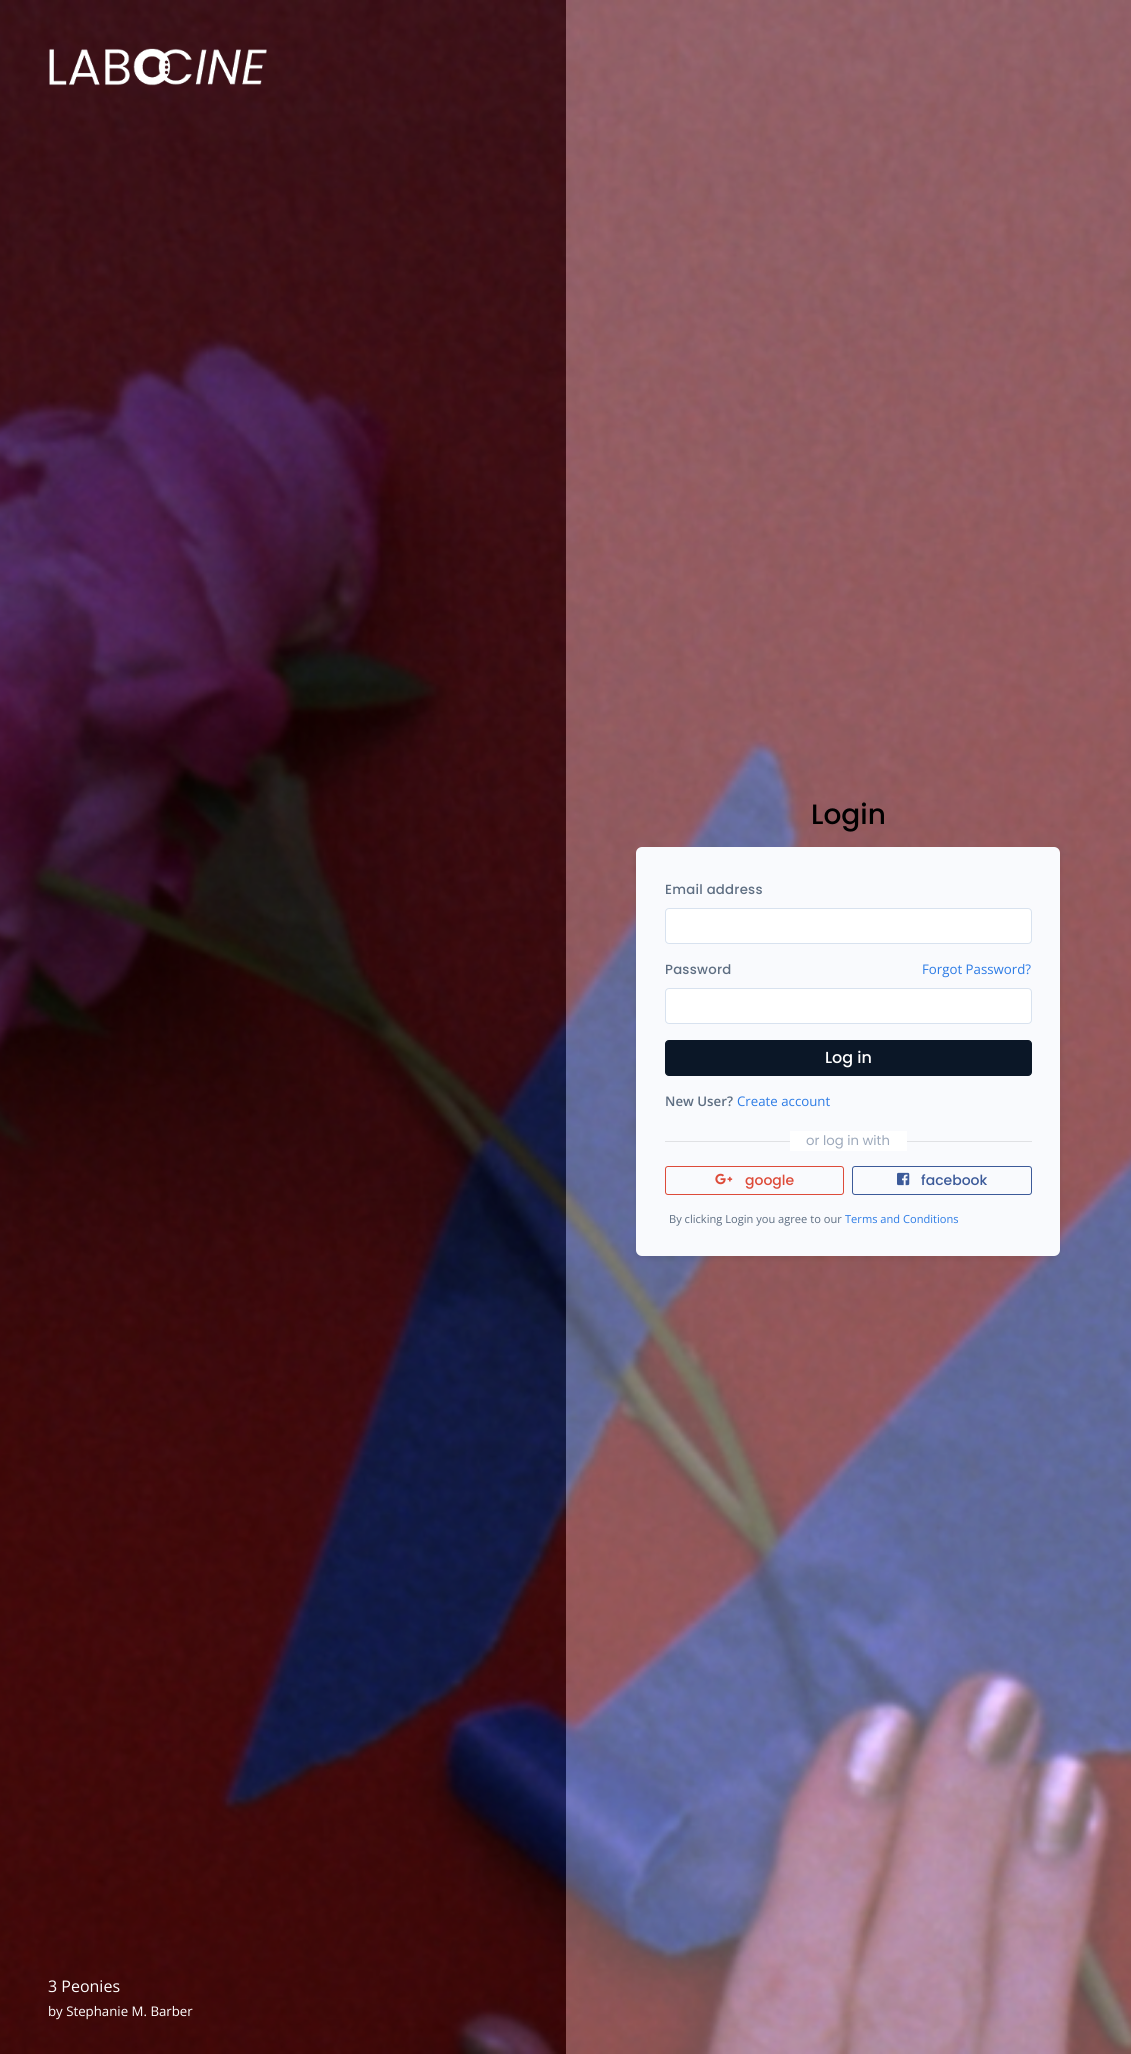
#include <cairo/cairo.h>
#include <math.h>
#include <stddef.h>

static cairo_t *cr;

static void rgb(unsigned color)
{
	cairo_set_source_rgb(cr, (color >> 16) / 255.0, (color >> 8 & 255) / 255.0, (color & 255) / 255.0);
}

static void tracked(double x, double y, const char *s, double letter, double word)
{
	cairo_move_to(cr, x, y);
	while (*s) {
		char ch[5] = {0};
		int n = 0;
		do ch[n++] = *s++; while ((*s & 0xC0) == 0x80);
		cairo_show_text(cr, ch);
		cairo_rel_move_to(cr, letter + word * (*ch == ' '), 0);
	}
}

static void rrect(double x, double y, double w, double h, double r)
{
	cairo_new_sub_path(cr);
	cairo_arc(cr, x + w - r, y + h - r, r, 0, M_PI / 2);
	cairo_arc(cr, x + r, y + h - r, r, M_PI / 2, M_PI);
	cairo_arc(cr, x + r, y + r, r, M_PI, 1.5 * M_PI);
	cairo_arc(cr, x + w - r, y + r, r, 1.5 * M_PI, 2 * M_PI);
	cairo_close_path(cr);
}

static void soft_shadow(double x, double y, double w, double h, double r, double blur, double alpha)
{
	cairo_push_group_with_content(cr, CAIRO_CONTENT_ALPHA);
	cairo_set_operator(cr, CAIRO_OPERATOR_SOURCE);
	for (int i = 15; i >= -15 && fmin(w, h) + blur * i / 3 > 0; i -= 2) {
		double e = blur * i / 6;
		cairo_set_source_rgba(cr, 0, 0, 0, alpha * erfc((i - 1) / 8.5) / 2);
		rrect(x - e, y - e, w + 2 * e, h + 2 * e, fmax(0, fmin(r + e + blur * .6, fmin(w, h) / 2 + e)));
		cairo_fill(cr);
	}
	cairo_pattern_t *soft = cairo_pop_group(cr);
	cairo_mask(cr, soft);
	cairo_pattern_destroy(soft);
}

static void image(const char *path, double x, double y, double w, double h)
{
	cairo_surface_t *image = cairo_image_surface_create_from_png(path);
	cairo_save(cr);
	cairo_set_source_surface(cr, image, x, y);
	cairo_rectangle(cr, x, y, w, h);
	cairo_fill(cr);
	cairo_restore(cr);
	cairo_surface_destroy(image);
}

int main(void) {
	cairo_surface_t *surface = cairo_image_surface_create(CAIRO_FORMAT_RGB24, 1131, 2054);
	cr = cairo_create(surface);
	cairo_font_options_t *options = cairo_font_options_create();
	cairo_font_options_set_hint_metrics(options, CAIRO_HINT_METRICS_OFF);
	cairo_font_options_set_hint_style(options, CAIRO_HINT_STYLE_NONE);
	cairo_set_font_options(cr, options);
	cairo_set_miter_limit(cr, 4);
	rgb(0xffffff);
	cairo_paint(cr);
	image("img/1.png", 0, 0, 1131, 2054);
	cairo_set_source_rgba(cr, 0.996, 1, 0.992, 0.3);
	cairo_rectangle(cr, 566, 0, 565, 2054);
	cairo_fill(cr);
	rgb(0x000000);
	soft_shadow(636, 850, 424, 409, 6, 3, 0.07);
	rgb(0xf9fafd);
	rrect(636, 847, 424, 409, 6);
	cairo_fill(cr);
	rgb(0xffffff);
	rrect(665.5, 908.5, 366, 35, 3.5);
	cairo_fill_preserve(cr);
	rgb(0xd8e2ef);
	cairo_set_line_width(cr, 1);
	cairo_stroke(cr);
	rgb(0xffffff);
	rrect(665.5, 988.5, 366, 35, 3.5);
	cairo_fill_preserve(cr);
	rgb(0xd8e2ef);
	cairo_stroke(cr);
	rgb(0x0b1727);
	rrect(665.5, 1040.5, 366, 35, 3.5);
	cairo_fill_preserve(cr);
	cairo_stroke(cr);
	rgb(0xe0e1e4);
	cairo_rectangle(cr, 665, 1141, 367, 1);
	cairo_fill(cr);
	rgb(0xffffff);
	cairo_rectangle(cr, 790, 1131, 117, 20);
	cairo_fill(cr);
	rrect(665.5, 1166.5, 178, 28, 2.5);
	rgb(0xdd4b39);
	cairo_stroke(cr);
	image("img/2.png", 715, 1173, 18, 12);
	rrect(852.5, 1166.5, 179, 28, 2.5);
	rgb(0x3c5a99);
	cairo_stroke(cr);
	image("img/3.png", 897, 1172, 13, 14);
	cairo_set_source_rgba(cr, 0, 0, 0, 0.4);
	cairo_rectangle(cr, 0, 0, 566, 2054);
	cairo_fill(cr);
	image("img/4.png", 49, 48, 218, 38);
	cairo_select_font_face(cr, "Poppins Medium", CAIRO_FONT_SLANT_NORMAL, CAIRO_FONT_WEIGHT_NORMAL);
	cairo_set_font_size(cr, 28);
	rgb(0x000000);
	cairo_move_to(cr, 811, 824);
	cairo_show_text(cr, "Login");
	cairo_set_font_size(cr, 13.25);
	rgb(0x5e6e82);
	tracked(665, 894, "Email address", 0.25, 0);
	tracked(665, 974, "Password", 0.25, 0);
	cairo_select_font_face(cr, "Open Sans", CAIRO_FONT_SLANT_NORMAL, CAIRO_FONT_WEIGHT_NORMAL);
	rgb(0x2c7be5);
	cairo_move_to(cr, 922, 974);
	cairo_show_text(cr, "Forgot Password?");
	cairo_select_font_face(cr, "Poppins Medium", CAIRO_FONT_SLANT_NORMAL, CAIRO_FONT_WEIGHT_NORMAL);
	cairo_set_font_size(cr, 16);
	rgb(0xffffff);
	cairo_move_to(cr, 825, 1063);
	cairo_show_text(cr, "Log in");
	cairo_select_font_face(cr, "Open Sans SemiBold", CAIRO_FONT_SLANT_NORMAL, CAIRO_FONT_WEIGHT_NORMAL);
	cairo_set_font_size(cr, 13.25);
	rgb(0x5e6e82);
	cairo_move_to(cr, 665, 1106);
	cairo_show_text(cr, "New User?");
	cairo_select_font_face(cr, "Open Sans", CAIRO_FONT_SLANT_NORMAL, CAIRO_FONT_WEIGHT_NORMAL);
	rgb(0x2c7be5);
	cairo_move_to(cr, 737, 1106);
	cairo_show_text(cr, "Create account");
	cairo_select_font_face(cr, "Poppins", CAIRO_FONT_SLANT_NORMAL, CAIRO_FONT_WEIGHT_NORMAL);
	rgb(0x9da9bb);
	cairo_move_to(cr, 806, 1145);
	cairo_show_text(cr, "or log in with");
	cairo_select_font_face(cr, "Poppins Medium", CAIRO_FONT_SLANT_NORMAL, CAIRO_FONT_WEIGHT_NORMAL);
	cairo_set_font_size(cr, 14);
	rgb(0xdd4b39);
	cairo_move_to(cr, 745, 1185);
	cairo_show_text(cr, "google");
	rgb(0x3c5a99);
	cairo_move_to(cr, 921, 1185);
	cairo_show_text(cr, "facebook");
	cairo_select_font_face(cr, "Open Sans", CAIRO_FONT_SLANT_NORMAL, CAIRO_FONT_WEIGHT_NORMAL);
	cairo_set_font_size(cr, 11.1);
	rgb(0x5e6e82);
	cairo_move_to(cr, 669, 1223);
	cairo_show_text(cr, "By clicking Login you agree to our");
	rgb(0x2c7be5);
	cairo_move_to(cr, 845, 1223);
	cairo_show_text(cr, "Terms and Conditions");
	cairo_set_font_size(cr, 16);
	rgb(0xffffff);
	cairo_move_to(cr, 48, 1992);
	cairo_show_text(cr, "3 Peonies");
	cairo_set_font_size(cr, 13.25);
	cairo_move_to(cr, 48, 2016);
	cairo_show_text(cr, "by Stephanie M. Barber");
	cairo_surface_write_to_png(surface, "page.png");
	cairo_font_options_destroy(options);
	cairo_destroy(cr);
	cairo_surface_destroy(surface);
	return 0;
}
